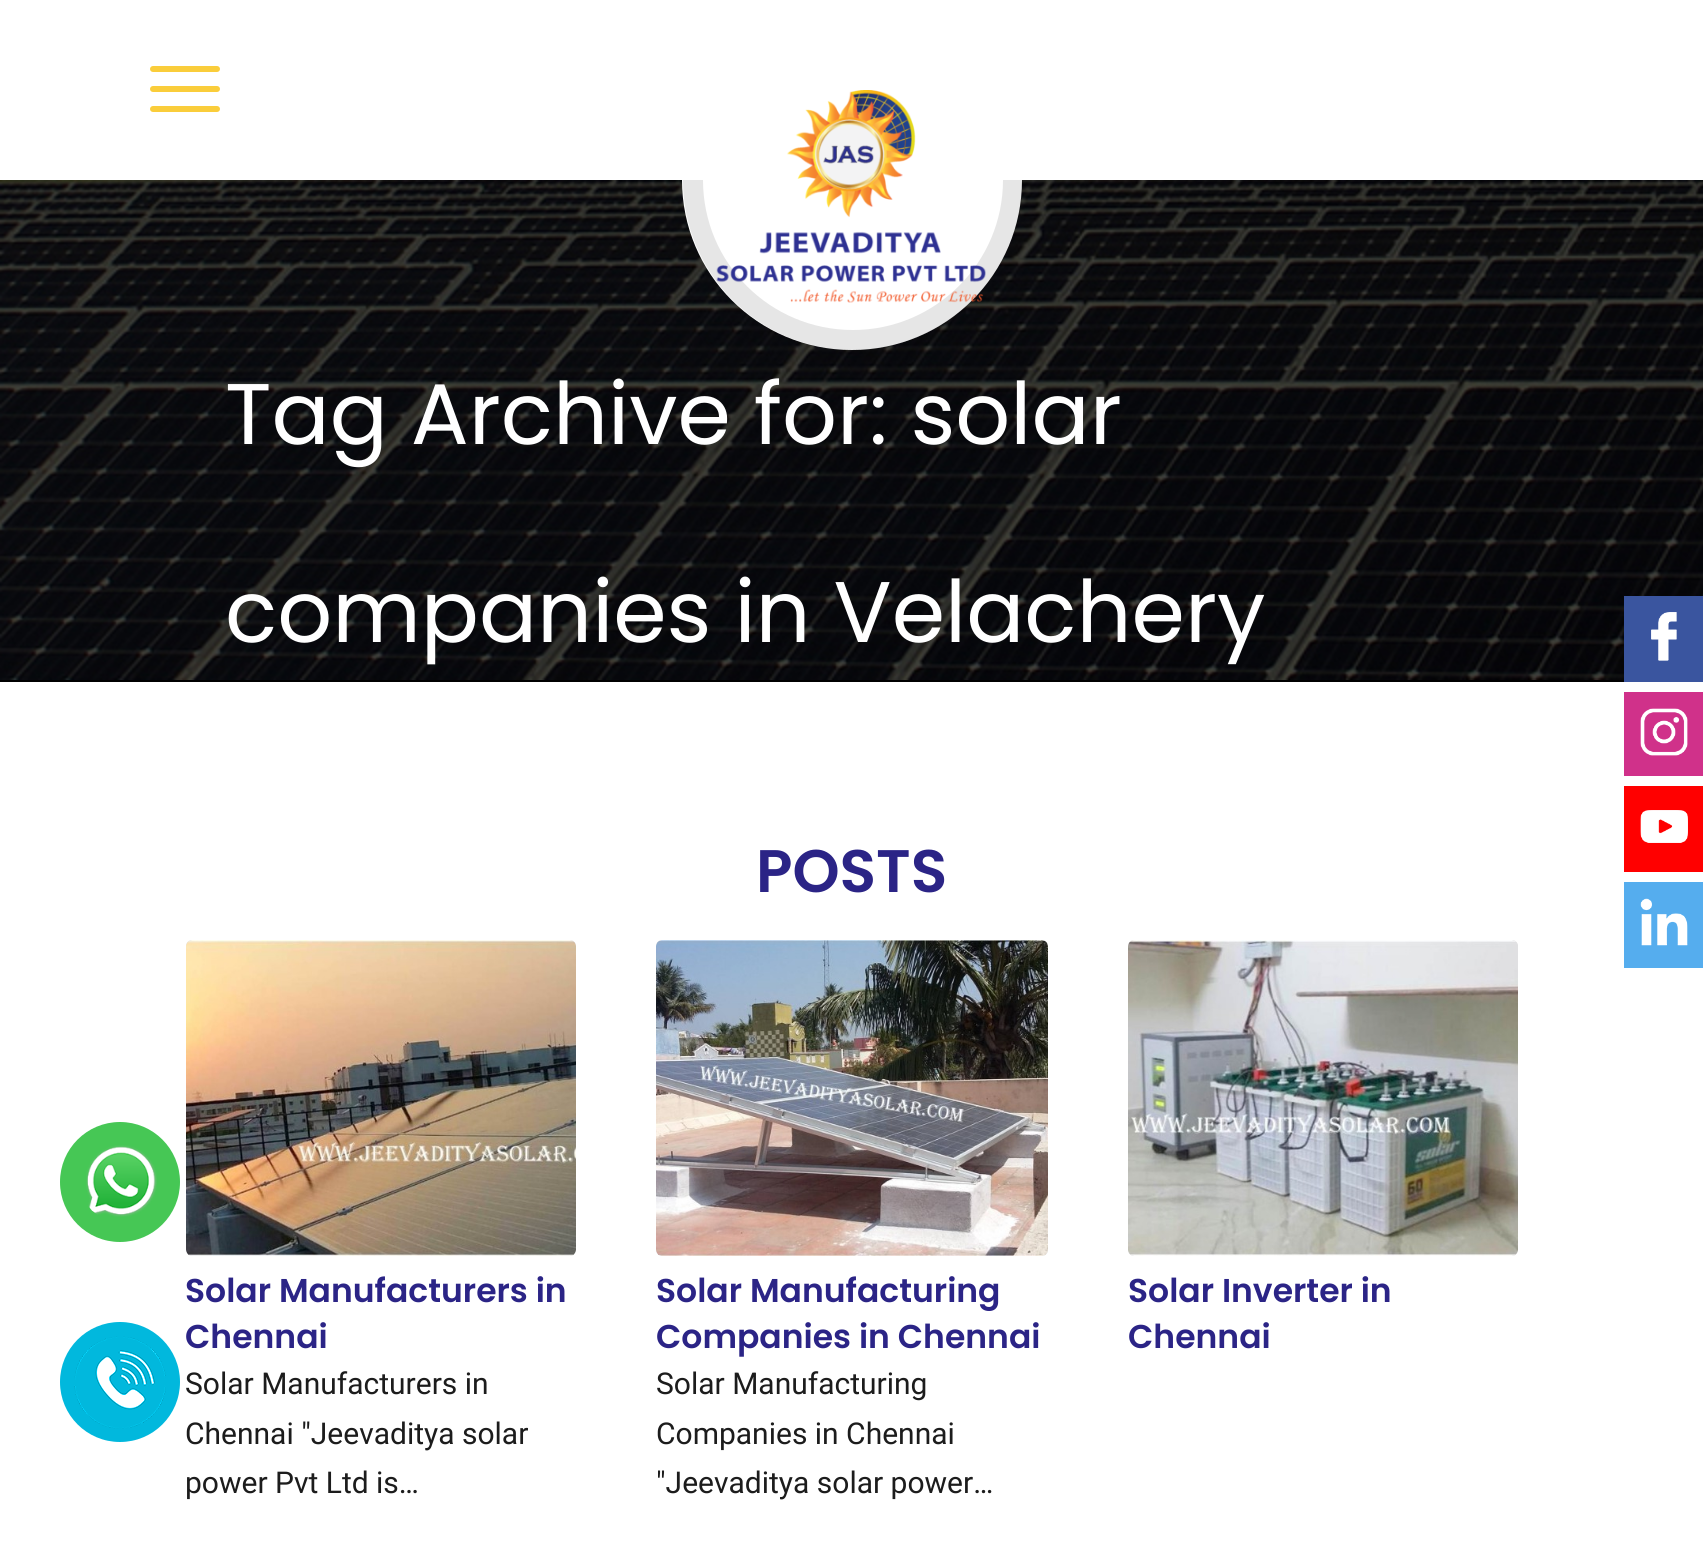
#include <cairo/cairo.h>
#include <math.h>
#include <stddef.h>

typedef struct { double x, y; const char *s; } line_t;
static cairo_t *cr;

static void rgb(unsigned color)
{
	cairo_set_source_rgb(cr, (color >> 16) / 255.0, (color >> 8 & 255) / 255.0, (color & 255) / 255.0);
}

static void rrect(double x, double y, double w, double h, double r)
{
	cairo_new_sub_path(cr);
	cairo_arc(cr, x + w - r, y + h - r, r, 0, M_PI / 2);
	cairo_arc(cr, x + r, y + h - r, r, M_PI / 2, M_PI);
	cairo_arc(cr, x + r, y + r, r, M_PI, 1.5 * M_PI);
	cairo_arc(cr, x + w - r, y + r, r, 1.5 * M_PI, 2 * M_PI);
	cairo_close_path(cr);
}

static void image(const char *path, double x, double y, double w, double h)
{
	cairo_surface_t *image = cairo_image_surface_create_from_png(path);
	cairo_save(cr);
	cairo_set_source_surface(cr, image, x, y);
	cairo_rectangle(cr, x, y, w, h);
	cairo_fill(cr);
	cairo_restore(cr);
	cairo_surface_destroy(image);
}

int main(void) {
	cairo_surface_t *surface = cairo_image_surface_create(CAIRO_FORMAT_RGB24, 1703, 1542);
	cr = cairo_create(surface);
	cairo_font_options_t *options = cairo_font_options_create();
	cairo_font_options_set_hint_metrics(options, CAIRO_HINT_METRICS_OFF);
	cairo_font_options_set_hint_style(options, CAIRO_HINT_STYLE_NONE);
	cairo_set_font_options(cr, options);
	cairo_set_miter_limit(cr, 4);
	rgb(0xffffff);
	cairo_paint(cr);
	rgb(0xfacd3b);
	rrect(150, 86, 70, 6, 3);
	cairo_fill(cr);
	rrect(150, 66, 70, 6, 3);
	cairo_fill(cr);
	rrect(150, 106, 70, 6, 3);
	cairo_fill(cr);
	image("img/2.png", 0, 180, 1703, 500);
	rgb(0xffffff);
	cairo_new_path(cr);
	cairo_move_to(cr, 682, 180);
	cairo_line_to(cr, 1022, 180);
	cairo_curve_to(cr, 1022, 274, 946, 350, 852, 350);
	cairo_curve_to(cr, 758, 350, 682, 274, 682, 180);
	cairo_close_path(cr);
	cairo_fill(cr);
	cairo_set_source_rgba(cr, 0, 0, 0, 0.1);
	cairo_set_fill_rule(cr, CAIRO_FILL_RULE_EVEN_ODD);
	cairo_new_path(cr);
	cairo_move_to(cr, 683, 180);
	cairo_line_to(cr, 1023, 180);
	cairo_curve_to(cr, 1023, 274, 946, 350, 853, 350);
	cairo_curve_to(cr, 759, 350, 683, 274, 683, 180);
	cairo_close_path(cr);
	cairo_move_to(cr, 703, 180);
	cairo_line_to(cr, 1003, 180);
	cairo_curve_to(cr, 1003, 263, 935, 330, 853, 330);
	cairo_curve_to(cr, 770, 330, 703, 263, 703, 180);
	cairo_close_path(cr);
	cairo_fill(cr);
	image("img/1.png", 716, 90, 270, 213);
	rgb(0x000000);
	cairo_rectangle(cr, 0, 680, 1624, 2);
	cairo_fill(cr);
	rgb(0xe1e1e1);
	rrect(186, 940, 390, 316, 6);
	cairo_fill(cr);
	image("img/3.png", 186, 940, 390, 316);
	rrect(656, 940, 392, 316, 6);
	cairo_fill(cr);
	image("img/4.png", 656, 940, 392, 316);
	rrect(1128, 940, 390, 316, 6);
	cairo_fill(cr);
	image("img/5.png", 1128, 940, 390, 316);
	rgb(0x3a559f);
	cairo_rectangle(cr, 1624, 596, 79, 86);
	cairo_fill(cr);
	image("img/6.png", 1651, 612, 26, 49);
	rgb(0xd0318a);
	cairo_rectangle(cr, 1624, 692, 79, 84);
	cairo_fill(cr);
	image("img/7.png", 1640, 708, 48, 48);
	rgb(0xff0000);
	cairo_rectangle(cr, 1624, 786, 79, 86);
	cairo_fill(cr);
	image("img/8.png", 1640, 810, 48, 33);
	rgb(0x55adee);
	cairo_rectangle(cr, 1624, 882, 79, 86);
	cairo_fill(cr);
	image("img/9.png", 1640, 898, 48, 48);
	rgb(0x46c755);
	cairo_arc(cr, 120, 1182, 60, 0, 2 * M_PI);
	cairo_fill(cr);
	image("img/10.png", 86, 1145, 71, 72);
	rgb(0x01b8dd);
	cairo_arc(cr, 120, 1382, 60, 0, 2 * M_PI);
	cairo_fill(cr);
	image("img/11.png", 74, 1336, 92, 93);
	cairo_select_font_face(cr, "Poppins", CAIRO_FONT_SLANT_NORMAL, CAIRO_FONT_WEIGHT_NORMAL);
	cairo_set_font_size(cr, 86);
	rgb(0xffffff);
	cairo_move_to(cr, 225, 444);
	cairo_show_text(cr, "Tag Archive for: solar");
	cairo_move_to(cr, 225, 642);
	cairo_show_text(cr, "companies in Velachery");
	cairo_select_font_face(cr, "Poppins SemiBold", CAIRO_FONT_SLANT_NORMAL, CAIRO_FONT_WEIGHT_NORMAL);
	cairo_set_font_size(cr, 60);
	rgb(0x2b2486);
	cairo_move_to(cr, 756, 892);
	cairo_show_text(cr, "POSTS");
	cairo_set_font_size(cr, 33);
	cairo_move_to(cr, 185, 1302);
	cairo_show_text(cr, "Solar Manufacturers in");
	cairo_move_to(cr, 185, 1348);
	cairo_show_text(cr, "Chennai");
	cairo_select_font_face(cr, "Roboto", CAIRO_FONT_SLANT_NORMAL, CAIRO_FONT_WEIGHT_NORMAL);
	cairo_set_font_size(cr, 30);
	rgb(0x1c1c1c);
	{
		static const line_t items[] = {
			{185, 1394, "Solar Manufacturers in"},
			{185, 1444, "Chennai \"Jeevaditya solar"},
			{185, 1493, "power Pvt Ltd is…"},
		};
		for (size_t i = 0; i < sizeof items / sizeof *items; i++) {
			cairo_move_to(cr, items[i].x, items[i].y);
			cairo_show_text(cr, items[i].s);
		}
	}
	cairo_select_font_face(cr, "Poppins SemiBold", CAIRO_FONT_SLANT_NORMAL, CAIRO_FONT_WEIGHT_NORMAL);
	cairo_set_font_size(cr, 33);
	rgb(0x2b2486);
	cairo_move_to(cr, 656, 1302);
	cairo_show_text(cr, "Solar Manufacturing");
	cairo_move_to(cr, 656, 1348);
	cairo_show_text(cr, "Companies in Chennai");
	cairo_select_font_face(cr, "Roboto", CAIRO_FONT_SLANT_NORMAL, CAIRO_FONT_WEIGHT_NORMAL);
	cairo_set_font_size(cr, 30);
	rgb(0x1c1c1c);
	{
		static const line_t items[] = {
			{656, 1394, "Solar Manufacturing"},
			{656, 1444, "Companies in Chennai"},
			{656, 1493, "\"Jeevaditya solar power…"},
		};
		for (size_t i = 0; i < sizeof items / sizeof *items; i++) {
			cairo_move_to(cr, items[i].x, items[i].y);
			cairo_show_text(cr, items[i].s);
		}
	}
	cairo_select_font_face(cr, "Poppins SemiBold", CAIRO_FONT_SLANT_NORMAL, CAIRO_FONT_WEIGHT_NORMAL);
	cairo_set_font_size(cr, 33);
	rgb(0x2b2486);
	cairo_move_to(cr, 1128, 1302);
	cairo_show_text(cr, "Solar Inverter in");
	cairo_move_to(cr, 1128, 1348);
	cairo_show_text(cr, "Chennai");
	cairo_surface_write_to_png(surface, "page.png");
	cairo_font_options_destroy(options);
	cairo_destroy(cr);
	cairo_surface_destroy(surface);
	return 0;
}
